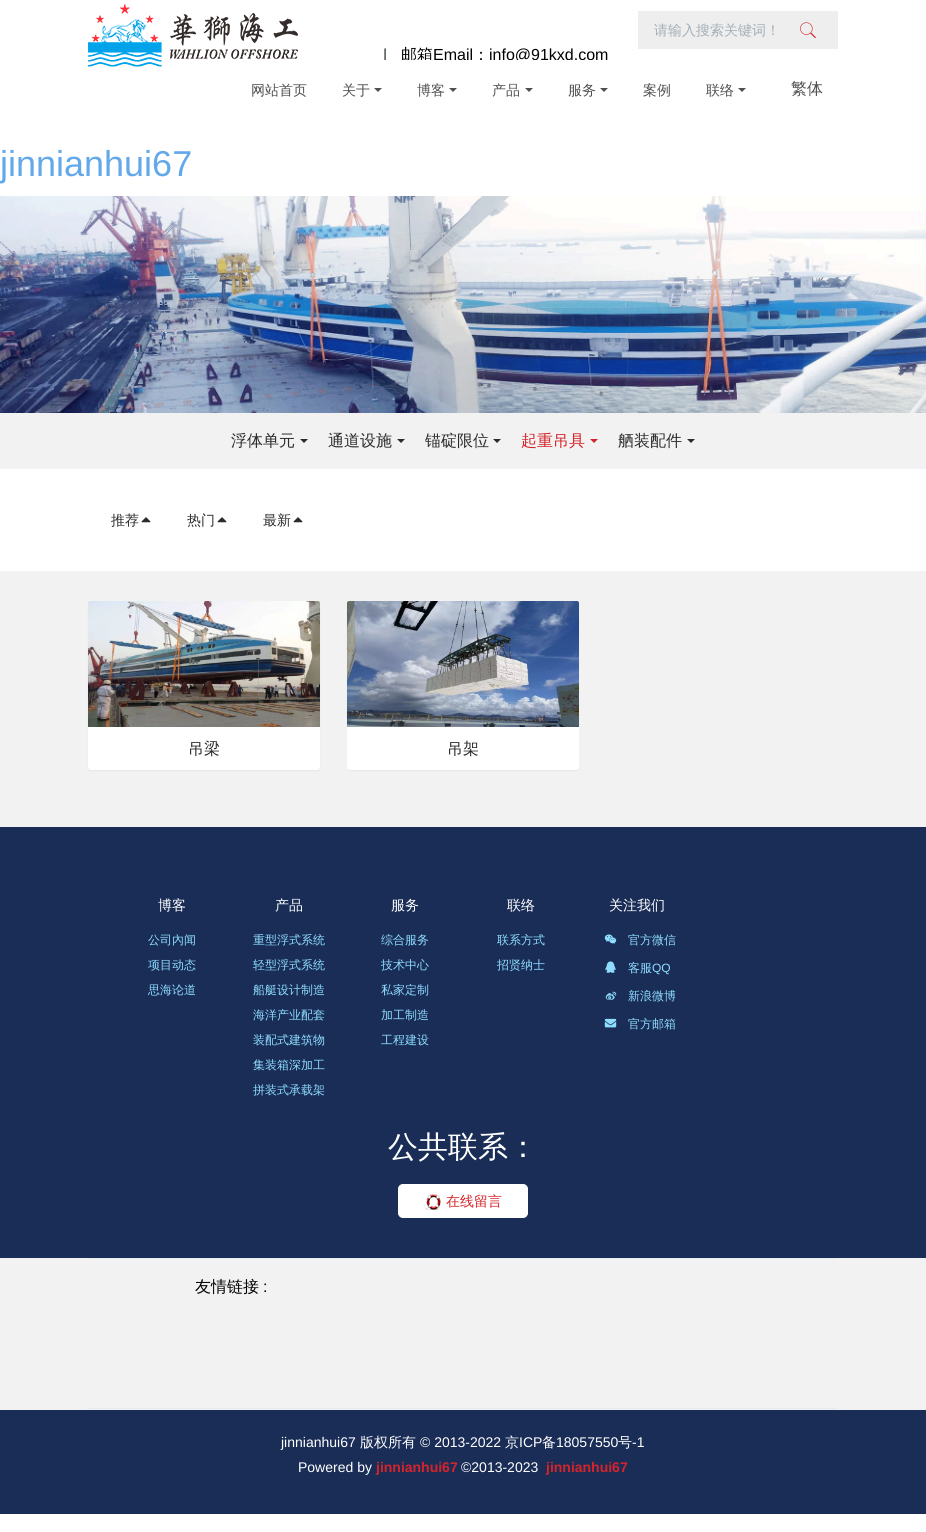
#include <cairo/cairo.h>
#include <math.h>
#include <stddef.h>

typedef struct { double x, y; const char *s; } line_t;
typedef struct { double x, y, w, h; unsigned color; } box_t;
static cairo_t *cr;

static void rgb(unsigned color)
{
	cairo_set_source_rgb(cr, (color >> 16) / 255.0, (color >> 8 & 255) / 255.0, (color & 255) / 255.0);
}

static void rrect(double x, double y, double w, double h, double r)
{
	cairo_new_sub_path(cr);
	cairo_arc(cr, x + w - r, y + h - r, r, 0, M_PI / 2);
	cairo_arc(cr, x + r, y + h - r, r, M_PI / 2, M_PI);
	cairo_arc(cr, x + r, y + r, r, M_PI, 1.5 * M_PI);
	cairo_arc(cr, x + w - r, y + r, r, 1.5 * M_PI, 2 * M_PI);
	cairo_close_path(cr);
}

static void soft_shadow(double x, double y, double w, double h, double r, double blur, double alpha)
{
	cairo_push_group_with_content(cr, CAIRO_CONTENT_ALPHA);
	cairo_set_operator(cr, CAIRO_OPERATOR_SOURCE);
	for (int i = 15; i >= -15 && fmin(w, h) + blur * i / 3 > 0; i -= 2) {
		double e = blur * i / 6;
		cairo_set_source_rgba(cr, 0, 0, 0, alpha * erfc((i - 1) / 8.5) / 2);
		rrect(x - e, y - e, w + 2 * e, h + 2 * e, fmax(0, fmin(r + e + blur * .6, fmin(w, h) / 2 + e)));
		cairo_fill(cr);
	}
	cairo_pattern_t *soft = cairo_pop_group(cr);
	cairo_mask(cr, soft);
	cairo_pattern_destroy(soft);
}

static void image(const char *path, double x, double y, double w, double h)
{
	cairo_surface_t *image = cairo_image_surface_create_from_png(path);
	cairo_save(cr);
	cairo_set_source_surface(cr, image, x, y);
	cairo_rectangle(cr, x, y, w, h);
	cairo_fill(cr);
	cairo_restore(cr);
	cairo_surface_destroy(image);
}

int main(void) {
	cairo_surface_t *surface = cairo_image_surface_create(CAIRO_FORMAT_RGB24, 926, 1532);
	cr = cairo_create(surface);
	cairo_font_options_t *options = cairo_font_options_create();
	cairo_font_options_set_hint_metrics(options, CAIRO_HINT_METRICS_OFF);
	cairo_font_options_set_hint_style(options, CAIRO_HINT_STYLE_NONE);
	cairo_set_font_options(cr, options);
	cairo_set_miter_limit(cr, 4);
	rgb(0xffffff);
	cairo_paint(cr);
	image("img/1.png", 88, 3, 210, 64);
	rgb(0xeeeeee);
	cairo_rectangle(cr, 638, 11, 200, 38);
	cairo_fill(cr);
	image("img/2.png", 800, 22, 16, 17);
	rgb(0x4f4f4f);
	cairo_new_path(cr);
	cairo_move_to(cr, 374, 88);
	cairo_line_to(cr, 382, 88);
	cairo_line_to(cr, 378, 92);
	cairo_close_path(cr);
	cairo_fill(cr);
	cairo_new_path(cr);
	cairo_move_to(cr, 449, 88);
	cairo_line_to(cr, 457, 88);
	cairo_line_to(cr, 453, 92);
	cairo_close_path(cr);
	cairo_fill(cr);
	cairo_new_path(cr);
	cairo_move_to(cr, 525, 88);
	cairo_line_to(cr, 533, 88);
	cairo_line_to(cr, 529, 92);
	cairo_close_path(cr);
	cairo_fill(cr);
	cairo_new_path(cr);
	cairo_move_to(cr, 600, 88);
	cairo_line_to(cr, 608, 88);
	cairo_line_to(cr, 604, 92);
	cairo_close_path(cr);
	cairo_fill(cr);
	cairo_new_path(cr);
	cairo_move_to(cr, 738, 88);
	cairo_line_to(cr, 746, 88);
	cairo_line_to(cr, 742, 92);
	cairo_close_path(cr);
	cairo_fill(cr);
	image("img/3.png", 0, 196, 926, 217);
	rgb(0xf2f2f2);
	cairo_rectangle(cr, 0, 413, 926, 55);
	cairo_fill(cr);
	rgb(0xf0f2f5);
	cairo_rectangle(cr, 0, 468, 926, 1);
	cairo_fill(cr);
	rgb(0x2b2b2b);
	cairo_new_path(cr);
	cairo_move_to(cr, 300, 439);
	cairo_line_to(cr, 308, 439);
	cairo_line_to(cr, 304, 443);
	cairo_close_path(cr);
	cairo_fill(cr);
	cairo_new_path(cr);
	cairo_move_to(cr, 397, 439);
	cairo_line_to(cr, 405, 439);
	cairo_line_to(cr, 401, 443);
	cairo_close_path(cr);
	cairo_fill(cr);
	cairo_new_path(cr);
	cairo_move_to(cr, 493, 439);
	cairo_line_to(cr, 501, 439);
	cairo_line_to(cr, 497, 443);
	cairo_close_path(cr);
	cairo_fill(cr);
	rgb(0xd4242a);
	cairo_new_path(cr);
	cairo_move_to(cr, 590, 439);
	cairo_line_to(cr, 598, 439);
	cairo_line_to(cr, 594, 443);
	cairo_close_path(cr);
	cairo_fill(cr);
	rgb(0x2b2b2b);
	cairo_new_path(cr);
	cairo_move_to(cr, 687, 439);
	cairo_line_to(cr, 695, 439);
	cairo_line_to(cr, 691, 443);
	cairo_close_path(cr);
	cairo_fill(cr);
	image("img/4.png", 141, 517, 10, 6);
	image("img/4.png", 217, 517, 10, 6);
	image("img/4.png", 293, 517, 10, 6);
	rgb(0xf2f2f2);
	cairo_rectangle(cr, 0, 571, 926, 255);
	cairo_fill(cr);
	rgb(0x000000);
	soft_shadow(88, 602, 232, 169, 3, 0.5, 0.05);
	rgb(0xffffff);
	rrect(88, 601, 232, 169, 3);
	cairo_fill(cr);
	image("img/5.png", 88, 601, 232, 126);
	rgb(0x000000);
	soft_shadow(347, 602, 232, 169, 3, 0.5, 0.05);
	rgb(0xffffff);
	rrect(347, 601, 232, 169, 3);
	cairo_fill(cr);
	image("img/6.png", 347, 601, 232, 126);
	rgb(0x1a2d57);
	cairo_rectangle(cr, 0, 827, 926, 431);
	cairo_fill(cr);
	rgb(0xf0f2f5);
	cairo_rectangle(cr, 0, 826, 926, 1);
	cairo_fill(cr);
	image("img/7.png", 604, 934, 13, 10);
	image("img/8.png", 605, 961, 11, 12);
	image("img/9.png", 605, 991, 12, 10);
	image("img/10.png", 604, 1018, 13, 10);
	rgb(0xffffff);
	rrect(398.5, 1184.5, 129, 33, 4.5);
	cairo_fill_preserve(cr);
	cairo_set_line_width(cr, 1);
	cairo_stroke(cr);
	image("img/11.png", 425, 1194, 16, 16);
	{
		static const box_t items[] = {
			{0, 1258, 926, 151, 0xf2f2f2},
			{88, 1258, 750, 1, 0xe7eaf1},
			{88, 1408, 750, 1, 0xe7eaf1},
			{0, 1410, 926, 104, 0x1a2d57},
			{0, 1409, 926, 1, 0xf0f2f5},
		};
		for (size_t i = 0; i < sizeof items / sizeof *items; i++) {
			rgb(items[i].color);
			cairo_rectangle(cr, items[i].x, items[i].y, items[i].w, items[i].h);
			cairo_fill(cr);
		}
	}
	cairo_select_font_face(cr, "WenQuanYi Zen Hei Medium", CAIRO_FONT_SLANT_NORMAL, CAIRO_FONT_WEIGHT_NORMAL);
	cairo_set_font_size(cr, 14);
	rgb(0xa3afb7);
	cairo_move_to(cr, 654, 35);
	cairo_show_text(cr, "请输入搜索关键词！");
	cairo_select_font_face(cr, "Liberation Sans", CAIRO_FONT_SLANT_NORMAL, CAIRO_FONT_WEIGHT_NORMAL);
	cairo_set_font_size(cr, 16);
	rgb(0x2a333c);
	cairo_move_to(cr, 383, 60);
	cairo_show_text(cr, "|");
	cairo_select_font_face(cr, "WenQuanYi Zen Hei Medium", CAIRO_FONT_SLANT_NORMAL, CAIRO_FONT_WEIGHT_NORMAL);
	rgb(0x000000);
	cairo_move_to(cr, 401, 60);
	cairo_show_text(cr, "邮箱");
	cairo_select_font_face(cr, "Liberation Sans", CAIRO_FONT_SLANT_NORMAL, CAIRO_FONT_WEIGHT_NORMAL);
	cairo_move_to(cr, 433, 60);
	cairo_show_text(cr, "Email");
	cairo_select_font_face(cr, "WenQuanYi Zen Hei Medium", CAIRO_FONT_SLANT_NORMAL, CAIRO_FONT_WEIGHT_NORMAL);
	cairo_move_to(cr, 473, 60);
	cairo_show_text(cr, "：");
	cairo_select_font_face(cr, "Liberation Sans", CAIRO_FONT_SLANT_NORMAL, CAIRO_FONT_WEIGHT_NORMAL);
	cairo_move_to(cr, 489, 60);
	cairo_show_text(cr, "info@91kxd.com");
	rgb(0xffffff);
	cairo_rectangle(cr, 384, 60, 208, 4);
	cairo_fill(cr);
	cairo_select_font_face(cr, "WenQuanYi Zen Hei Medium", CAIRO_FONT_SLANT_NORMAL, CAIRO_FONT_WEIGHT_NORMAL);
	cairo_set_font_size(cr, 14);
	rgb(0x4f4f4f);
	{
		static const line_t items[] = {
			{251, 95, "网站首页"},
			{342, 95, "关于"},
			{417, 95, "博客"},
			{492, 95, "产品"},
			{568, 95, "服务"},
			{643, 95, "案例"},
			{706, 95, "联络"},
		};
		for (size_t i = 0; i < sizeof items / sizeof *items; i++) {
			cairo_move_to(cr, items[i].x, items[i].y);
			cairo_show_text(cr, items[i].s);
		}
	}
	cairo_set_font_size(cr, 16);
	cairo_move_to(cr, 791, 94);
	cairo_show_text(cr, "繁体");
	cairo_select_font_face(cr, "Liberation Sans", CAIRO_FONT_SLANT_NORMAL, CAIRO_FONT_WEIGHT_NORMAL);
	cairo_set_font_size(cr, 36);
	rgb(0x62a8ea);
	cairo_move_to(cr, 0, 176);
	cairo_show_text(cr, "jinnianhui67");
	cairo_select_font_face(cr, "WenQuanYi Zen Hei Medium", CAIRO_FONT_SLANT_NORMAL, CAIRO_FONT_WEIGHT_NORMAL);
	cairo_set_font_size(cr, 16);
	rgb(0x2b2b2b);
	{
		static const line_t items[] = {
			{231, 446, "浮体单元"},
			{328, 446, "通道设施"},
			{425, 446, "锚碇限位"},
		};
		for (size_t i = 0; i < sizeof items / sizeof *items; i++) {
			cairo_move_to(cr, items[i].x, items[i].y);
			cairo_show_text(cr, items[i].s);
		}
	}
	rgb(0xd4242a);
	cairo_move_to(cr, 521, 446);
	cairo_show_text(cr, "起重吊具");
	rgb(0x2b2b2b);
	cairo_move_to(cr, 618, 446);
	cairo_show_text(cr, "舾装配件");
	cairo_set_font_size(cr, 14);
	{
		static const line_t items[] = {
			{111, 525, "推荐"},
			{187, 525, "热门"},
			{263, 525, "最新"},
		};
		for (size_t i = 0; i < sizeof items / sizeof *items; i++) {
			cairo_move_to(cr, items[i].x, items[i].y);
			cairo_show_text(cr, items[i].s);
		}
	}
	cairo_set_font_size(cr, 16);
	cairo_move_to(cr, 188, 754);
	cairo_show_text(cr, "吊梁");
	cairo_move_to(cr, 447, 754);
	cairo_show_text(cr, "吊架");
	cairo_set_font_size(cr, 14);
	rgb(0xffffff);
	cairo_move_to(cr, 158, 910);
	cairo_show_text(cr, "博客");
	cairo_set_font_size(cr, 12);
	rgb(0x8eddff);
	{
		static const line_t items[] = {
			{148, 944, "公司內闻"},
			{148, 969, "项目动态"},
			{148, 994, "思海论道"},
		};
		for (size_t i = 0; i < sizeof items / sizeof *items; i++) {
			cairo_move_to(cr, items[i].x, items[i].y);
			cairo_show_text(cr, items[i].s);
		}
	}
	cairo_set_font_size(cr, 14);
	rgb(0xffffff);
	cairo_move_to(cr, 275, 910);
	cairo_show_text(cr, "产品");
	cairo_set_font_size(cr, 12);
	rgb(0x8eddff);
	{
		static const line_t items[] = {
			{253, 944, "重型浮式系统"},
			{253, 969, "轻型浮式系统"},
			{253, 994, "船艇设计制造"},
			{253, 1019, "海洋产业配套"},
			{253, 1044, "装配式建筑物"},
			{253, 1069, "集装箱深加工"},
			{253, 1094, "拼装式承载架"},
		};
		for (size_t i = 0; i < sizeof items / sizeof *items; i++) {
			cairo_move_to(cr, items[i].x, items[i].y);
			cairo_show_text(cr, items[i].s);
		}
	}
	cairo_set_font_size(cr, 14);
	rgb(0xffffff);
	cairo_move_to(cr, 391, 910);
	cairo_show_text(cr, "服务");
	cairo_set_font_size(cr, 12);
	rgb(0x8eddff);
	{
		static const line_t items[] = {
			{381, 944, "综合服务"},
			{381, 969, "技术中心"},
			{381, 994, "私家定制"},
			{381, 1019, "加工制造"},
			{381, 1044, "工程建设"},
		};
		for (size_t i = 0; i < sizeof items / sizeof *items; i++) {
			cairo_move_to(cr, items[i].x, items[i].y);
			cairo_show_text(cr, items[i].s);
		}
	}
	cairo_set_font_size(cr, 14);
	rgb(0xffffff);
	cairo_move_to(cr, 507, 910);
	cairo_show_text(cr, "联络");
	cairo_set_font_size(cr, 12);
	rgb(0x8eddff);
	cairo_move_to(cr, 497, 944);
	cairo_show_text(cr, "联系方式");
	cairo_move_to(cr, 497, 969);
	cairo_show_text(cr, "招贤纳士");
	cairo_set_font_size(cr, 14);
	rgb(0xffffff);
	cairo_move_to(cr, 609, 910);
	cairo_show_text(cr, "关注我们");
	cairo_set_font_size(cr, 12);
	rgb(0x8eddff);
	cairo_move_to(cr, 628, 944);
	cairo_show_text(cr, "官方微信");
	cairo_move_to(cr, 628, 972);
	cairo_show_text(cr, "客服");
	cairo_select_font_face(cr, "Liberation Sans", CAIRO_FONT_SLANT_NORMAL, CAIRO_FONT_WEIGHT_NORMAL);
	cairo_move_to(cr, 652, 972);
	cairo_show_text(cr, "QQ");
	cairo_select_font_face(cr, "WenQuanYi Zen Hei Medium", CAIRO_FONT_SLANT_NORMAL, CAIRO_FONT_WEIGHT_NORMAL);
	cairo_move_to(cr, 628, 1000);
	cairo_show_text(cr, "新浪微博");
	cairo_move_to(cr, 628, 1028);
	cairo_show_text(cr, "官方邮箱");
	cairo_set_font_size(cr, 30);
	rgb(0xffffff);
	cairo_move_to(cr, 388, 1157);
	cairo_show_text(cr, "公共联系：");
	cairo_set_font_size(cr, 14);
	rgb(0xd4242a);
	cairo_move_to(cr, 446, 1206);
	cairo_show_text(cr, "在线留言");
	cairo_set_font_size(cr, 16);
	rgb(0x000000);
	cairo_move_to(cr, 195, 1292);
	cairo_show_text(cr, "友情链接");
	cairo_select_font_face(cr, "Liberation Sans", CAIRO_FONT_SLANT_NORMAL, CAIRO_FONT_WEIGHT_NORMAL);
	cairo_move_to(cr, 263, 1292);
	cairo_show_text(cr, ":");
	cairo_set_font_size(cr, 14);
	rgb(0xffffff);
	cairo_move_to(cr, 281, 1447);
	cairo_show_text(cr, "jinnianhui67");
	cairo_select_font_face(cr, "WenQuanYi Zen Hei Medium", CAIRO_FONT_SLANT_NORMAL, CAIRO_FONT_WEIGHT_NORMAL);
	cairo_move_to(cr, 360, 1447);
	cairo_show_text(cr, "版权所有");
	cairo_select_font_face(cr, "Liberation Sans", CAIRO_FONT_SLANT_NORMAL, CAIRO_FONT_WEIGHT_NORMAL);
	cairo_move_to(cr, 420, 1447);
	cairo_show_text(cr, "© 2013-2022");
	cairo_select_font_face(cr, "WenQuanYi Zen Hei Medium", CAIRO_FONT_SLANT_NORMAL, CAIRO_FONT_WEIGHT_NORMAL);
	cairo_move_to(cr, 505, 1447);
	cairo_show_text(cr, "京");
	cairo_select_font_face(cr, "Liberation Sans", CAIRO_FONT_SLANT_NORMAL, CAIRO_FONT_WEIGHT_NORMAL);
	cairo_move_to(cr, 519, 1447);
	cairo_show_text(cr, "ICP");
	cairo_select_font_face(cr, "WenQuanYi Zen Hei Medium", CAIRO_FONT_SLANT_NORMAL, CAIRO_FONT_WEIGHT_NORMAL);
	cairo_move_to(cr, 542, 1447);
	cairo_show_text(cr, "备");
	cairo_select_font_face(cr, "Liberation Sans", CAIRO_FONT_SLANT_NORMAL, CAIRO_FONT_WEIGHT_NORMAL);
	cairo_move_to(cr, 556, 1447);
	cairo_show_text(cr, "18057550");
	cairo_select_font_face(cr, "WenQuanYi Zen Hei Medium", CAIRO_FONT_SLANT_NORMAL, CAIRO_FONT_WEIGHT_NORMAL);
	cairo_move_to(cr, 618, 1447);
	cairo_show_text(cr, "号");
	cairo_select_font_face(cr, "Liberation Sans", CAIRO_FONT_SLANT_NORMAL, CAIRO_FONT_WEIGHT_NORMAL);
	cairo_move_to(cr, 632, 1447);
	cairo_show_text(cr, "-1");
	cairo_move_to(cr, 298, 1472);
	cairo_show_text(cr, "Powered by");
	cairo_select_font_face(cr, "Liberation Sans", CAIRO_FONT_SLANT_NORMAL, CAIRO_FONT_WEIGHT_BOLD);
	rgb(0xd4242a);
	cairo_move_to(cr, 376, 1472);
	cairo_show_text(cr, "jinnianhui67");
	cairo_select_font_face(cr, "Liberation Sans", CAIRO_FONT_SLANT_NORMAL, CAIRO_FONT_WEIGHT_NORMAL);
	rgb(0xffffff);
	cairo_move_to(cr, 461, 1472);
	cairo_show_text(cr, "©2013-2023");
	cairo_select_font_face(cr, "Liberation Sans", CAIRO_FONT_SLANT_NORMAL, CAIRO_FONT_WEIGHT_BOLD);
	rgb(0xd4242a);
	cairo_move_to(cr, 546, 1472);
	cairo_show_text(cr, "jinnianhui67");
	cairo_surface_write_to_png(surface, "page.png");
	cairo_font_options_destroy(options);
	cairo_destroy(cr);
	cairo_surface_destroy(surface);
	return 0;
}
